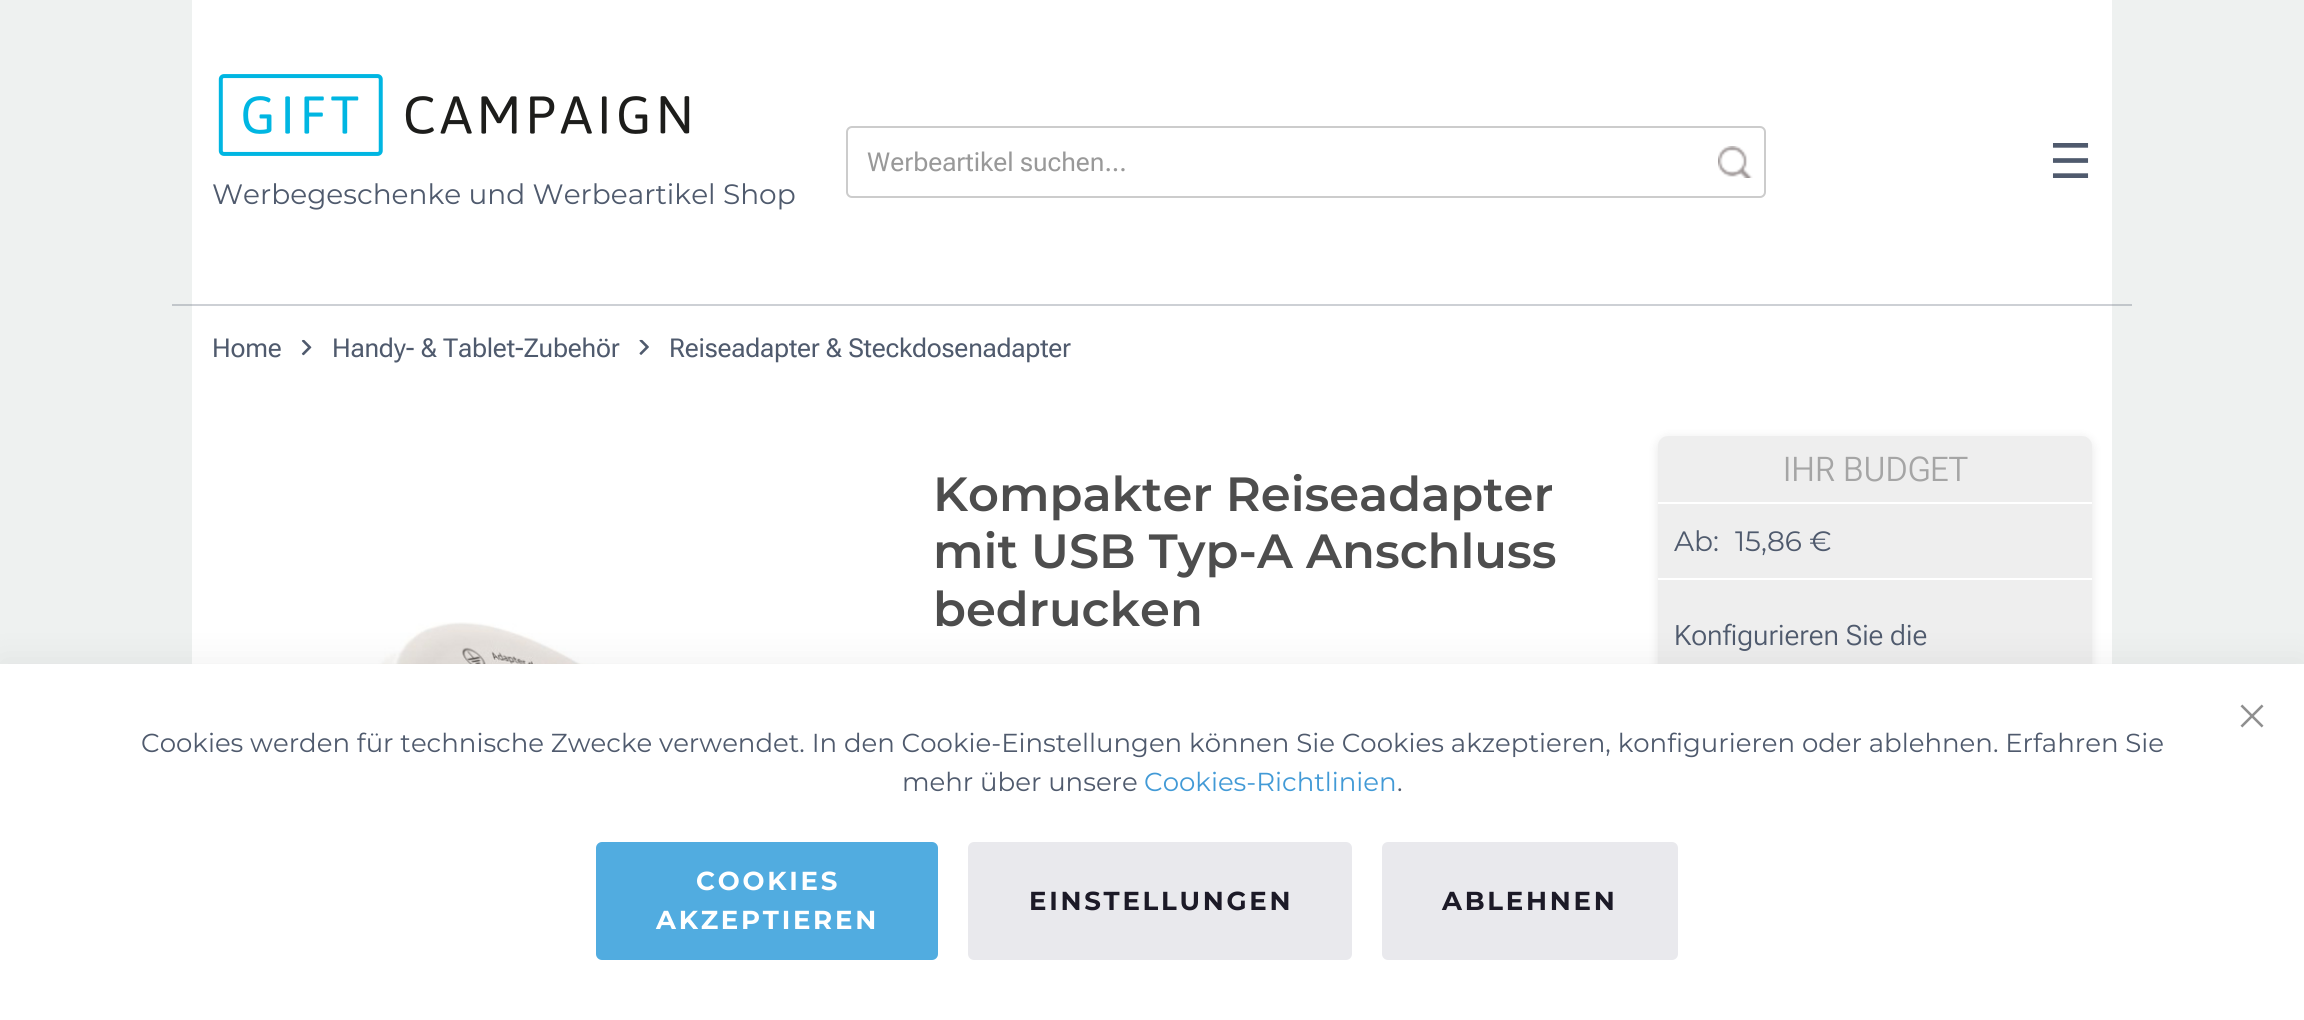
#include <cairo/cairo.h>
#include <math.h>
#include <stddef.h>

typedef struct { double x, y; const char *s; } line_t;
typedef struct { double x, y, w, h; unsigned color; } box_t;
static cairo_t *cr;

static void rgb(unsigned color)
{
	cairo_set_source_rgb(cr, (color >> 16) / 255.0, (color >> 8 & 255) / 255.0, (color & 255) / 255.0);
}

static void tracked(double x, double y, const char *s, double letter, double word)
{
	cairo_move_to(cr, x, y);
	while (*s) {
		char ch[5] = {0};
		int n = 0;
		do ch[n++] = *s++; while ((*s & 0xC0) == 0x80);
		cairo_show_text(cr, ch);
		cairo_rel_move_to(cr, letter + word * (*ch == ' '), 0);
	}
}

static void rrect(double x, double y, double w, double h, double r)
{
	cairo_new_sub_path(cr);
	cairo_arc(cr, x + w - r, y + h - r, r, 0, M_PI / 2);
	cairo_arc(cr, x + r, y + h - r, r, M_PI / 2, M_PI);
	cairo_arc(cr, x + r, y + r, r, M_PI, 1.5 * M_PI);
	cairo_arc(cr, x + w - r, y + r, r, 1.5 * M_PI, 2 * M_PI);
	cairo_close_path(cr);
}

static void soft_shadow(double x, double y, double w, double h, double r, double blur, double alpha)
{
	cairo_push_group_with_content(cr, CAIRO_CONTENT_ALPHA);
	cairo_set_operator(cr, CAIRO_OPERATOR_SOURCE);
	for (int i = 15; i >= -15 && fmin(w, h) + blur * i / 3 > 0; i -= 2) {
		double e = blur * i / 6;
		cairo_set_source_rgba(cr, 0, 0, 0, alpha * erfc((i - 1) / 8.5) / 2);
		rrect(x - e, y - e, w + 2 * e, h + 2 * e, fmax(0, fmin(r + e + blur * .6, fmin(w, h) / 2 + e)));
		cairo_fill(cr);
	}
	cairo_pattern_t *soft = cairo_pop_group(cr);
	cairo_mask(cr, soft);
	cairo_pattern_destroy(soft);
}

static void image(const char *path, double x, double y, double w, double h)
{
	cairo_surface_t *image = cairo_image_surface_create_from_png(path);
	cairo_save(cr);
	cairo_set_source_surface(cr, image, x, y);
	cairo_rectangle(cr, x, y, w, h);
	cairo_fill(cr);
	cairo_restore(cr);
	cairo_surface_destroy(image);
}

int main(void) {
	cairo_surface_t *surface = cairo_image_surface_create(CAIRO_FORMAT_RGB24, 2304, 1020);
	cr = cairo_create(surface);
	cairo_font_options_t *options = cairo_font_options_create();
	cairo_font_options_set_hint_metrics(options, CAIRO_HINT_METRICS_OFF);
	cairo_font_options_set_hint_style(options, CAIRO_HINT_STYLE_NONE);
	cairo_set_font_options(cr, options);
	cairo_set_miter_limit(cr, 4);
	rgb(0xeef1f0);
	cairo_paint(cr);
	{
		static const box_t items[] = {
			{172, 304, 1960, 2, 0xc1c6ca},
			{192, 0, 1920, 664, 0xffffff},
			{192, 304, 1920, 2, 0xcdd0d5},
		};
		for (size_t i = 0; i < sizeof items / sizeof *items; i++) {
			rgb(items[i].color);
			cairo_rectangle(cr, items[i].x, items[i].y, items[i].w, items[i].h);
			cairo_fill(cr);
		}
	}
	rrect(847, 127, 918, 70, 5);
	rgb(0xcccccc);
	cairo_stroke(cr);
	image("img/1.png", 1718, 146, 35, 32);
	image("img/2.png", 218, 74, 472, 82);
	image("img/3.png", 301, 339, 11, 17);
	image("img/4.png", 639, 339, 10, 16);
	image("img/5.png", 286, 622, 543, 42);
	rgb(0x000000);
	soft_shadow(1658, 438, 434, 438, 10, 5, 0.1);
	rgb(0xeeeeee);
	rrect(1658, 436, 434, 438, 10);
	cairo_fill(cr);
	rgb(0xffffff);
	cairo_rectangle(cr, 1658, 502, 434, 2);
	cairo_fill(cr);
	cairo_rectangle(cr, 1658, 578, 434, 2);
	cairo_fill(cr);
	rgb(0x000000);
	soft_shadow(0, 660, 2304, 356, 0, 18, 0.06);
	rgb(0xffffff);
	cairo_rectangle(cr, 0, 664, 2304, 356);
	cairo_fill(cr);
	image("img/6.png", 2240, 704, 24, 24);
	rgb(0x51ace0);
	rrect(596, 842, 342, 118, 6);
	cairo_fill(cr);
	rgb(0xe9e9ed);
	rrect(968, 842, 384, 118, 6);
	cairo_fill(cr);
	rrect(1382, 842, 296, 118, 6);
	cairo_fill(cr);
	cairo_select_font_face(cr, "Roboto Flex", CAIRO_FONT_SLANT_NORMAL, CAIRO_FONT_WEIGHT_NORMAL);
	cairo_set_font_size(cr, 26);
	rgb(0x999999);
	cairo_move_to(cr, 867, 171);
	cairo_show_text(cr, "Werbeartikel suchen...");
	cairo_select_font_face(cr, "DejaVu Sans", CAIRO_FONT_SLANT_NORMAL, CAIRO_FONT_WEIGHT_NORMAL);
	cairo_set_font_size(cr, 48);
	rgb(0x4f5a6d);
	cairo_move_to(cr, 2049, 178);
	cairo_show_text(cr, "☰");
	cairo_select_font_face(cr, "Montserrat", CAIRO_FONT_SLANT_NORMAL, CAIRO_FONT_WEIGHT_NORMAL);
	cairo_set_font_size(cr, 28);
	cairo_move_to(cr, 212, 204);
	cairo_show_text(cr, "Werbegeschenke und Werbeartikel Shop");
	cairo_select_font_face(cr, "Roboto Flex", CAIRO_FONT_SLANT_NORMAL, CAIRO_FONT_WEIGHT_NORMAL);
	cairo_set_font_size(cr, 26);
	{
		static const line_t items[] = {
			{212, 357, "Home"},
			{332, 357, "Handy- & Tablet-Zubehör"},
			{669, 357, "Reiseadapter & Steckdosenadapter"},
		};
		for (size_t i = 0; i < sizeof items / sizeof *items; i++) {
			tracked(items[i].x, items[i].y, items[i].s, -0.2, 0);
		}
	}
	cairo_select_font_face(cr, "Montserrat SemiBold", CAIRO_FONT_SLANT_NORMAL, CAIRO_FONT_WEIGHT_NORMAL);
	cairo_set_font_size(cr, 48);
	rgb(0x4d4d4d);
	{
		static const line_t items[] = {
			{933, 511, "Kompakter Reiseadapter"},
			{933, 568, "mit USB Typ-A Anschluss"},
			{933, 626, "bedrucken"},
		};
		for (size_t i = 0; i < sizeof items / sizeof *items; i++) {
			cairo_move_to(cr, items[i].x, items[i].y);
			cairo_show_text(cr, items[i].s);
		}
	}
	cairo_select_font_face(cr, "Roboto Flex Light", CAIRO_FONT_SLANT_NORMAL, CAIRO_FONT_WEIGHT_NORMAL);
	cairo_set_font_size(cr, 34);
	rgb(0xa5a5a5);
	cairo_move_to(cr, 1783, 481);
	cairo_show_text(cr, "IHR BUDGET");
	cairo_select_font_face(cr, "Montserrat", CAIRO_FONT_SLANT_NORMAL, CAIRO_FONT_WEIGHT_NORMAL);
	cairo_set_font_size(cr, 28);
	rgb(0x4f5a6d);
	cairo_move_to(cr, 1674, 551);
	cairo_show_text(cr, "Ab:");
	cairo_move_to(cr, 1735, 551);
	cairo_show_text(cr, "15,86 €");
	cairo_select_font_face(cr, "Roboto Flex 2 Light", CAIRO_FONT_SLANT_NORMAL, CAIRO_FONT_WEIGHT_NORMAL);
	cairo_move_to(cr, 1674, 645);
	cairo_show_text(cr, "Konfigurieren Sie die");
	cairo_select_font_face(cr, "Montserrat", CAIRO_FONT_SLANT_NORMAL, CAIRO_FONT_WEIGHT_NORMAL);
	cairo_set_font_size(cr, 26);
	cairo_move_to(cr, 141, 752);
	cairo_show_text(cr, "Cookies werden für technische Zwecke verwendet. In den Cookie-Einstellungen können Sie Cookies akzeptieren, konfigurieren oder ablehnen. Erfahren Sie");
	cairo_move_to(cr, 902, 791);
	cairo_show_text(cr, "mehr über unsere");
	rgb(0x429ad6);
	cairo_move_to(cr, 1144, 791);
	cairo_show_text(cr, "Cookies-Richtlinien");
	rgb(0x4f5a6d);
	cairo_move_to(cr, 1397, 791);
	cairo_show_text(cr, ".");
	cairo_select_font_face(cr, "Montserrat", CAIRO_FONT_SLANT_NORMAL, CAIRO_FONT_WEIGHT_BOLD);
	rgb(0xffffff);
	tracked(696, 890, "COOKIES", 2.75, 0);
	tracked(656, 929, "AKZEPTIEREN", 2.75, 0);
	rgb(0x1c1a27);
	tracked(1029, 910, "EINSTELLUNGEN", 2.75, 0);
	tracked(1442, 910, "ABLEHNEN", 2.75, 0);
	cairo_surface_write_to_png(surface, "page.png");
	cairo_font_options_destroy(options);
	cairo_destroy(cr);
	cairo_surface_destroy(surface);
	return 0;
}
